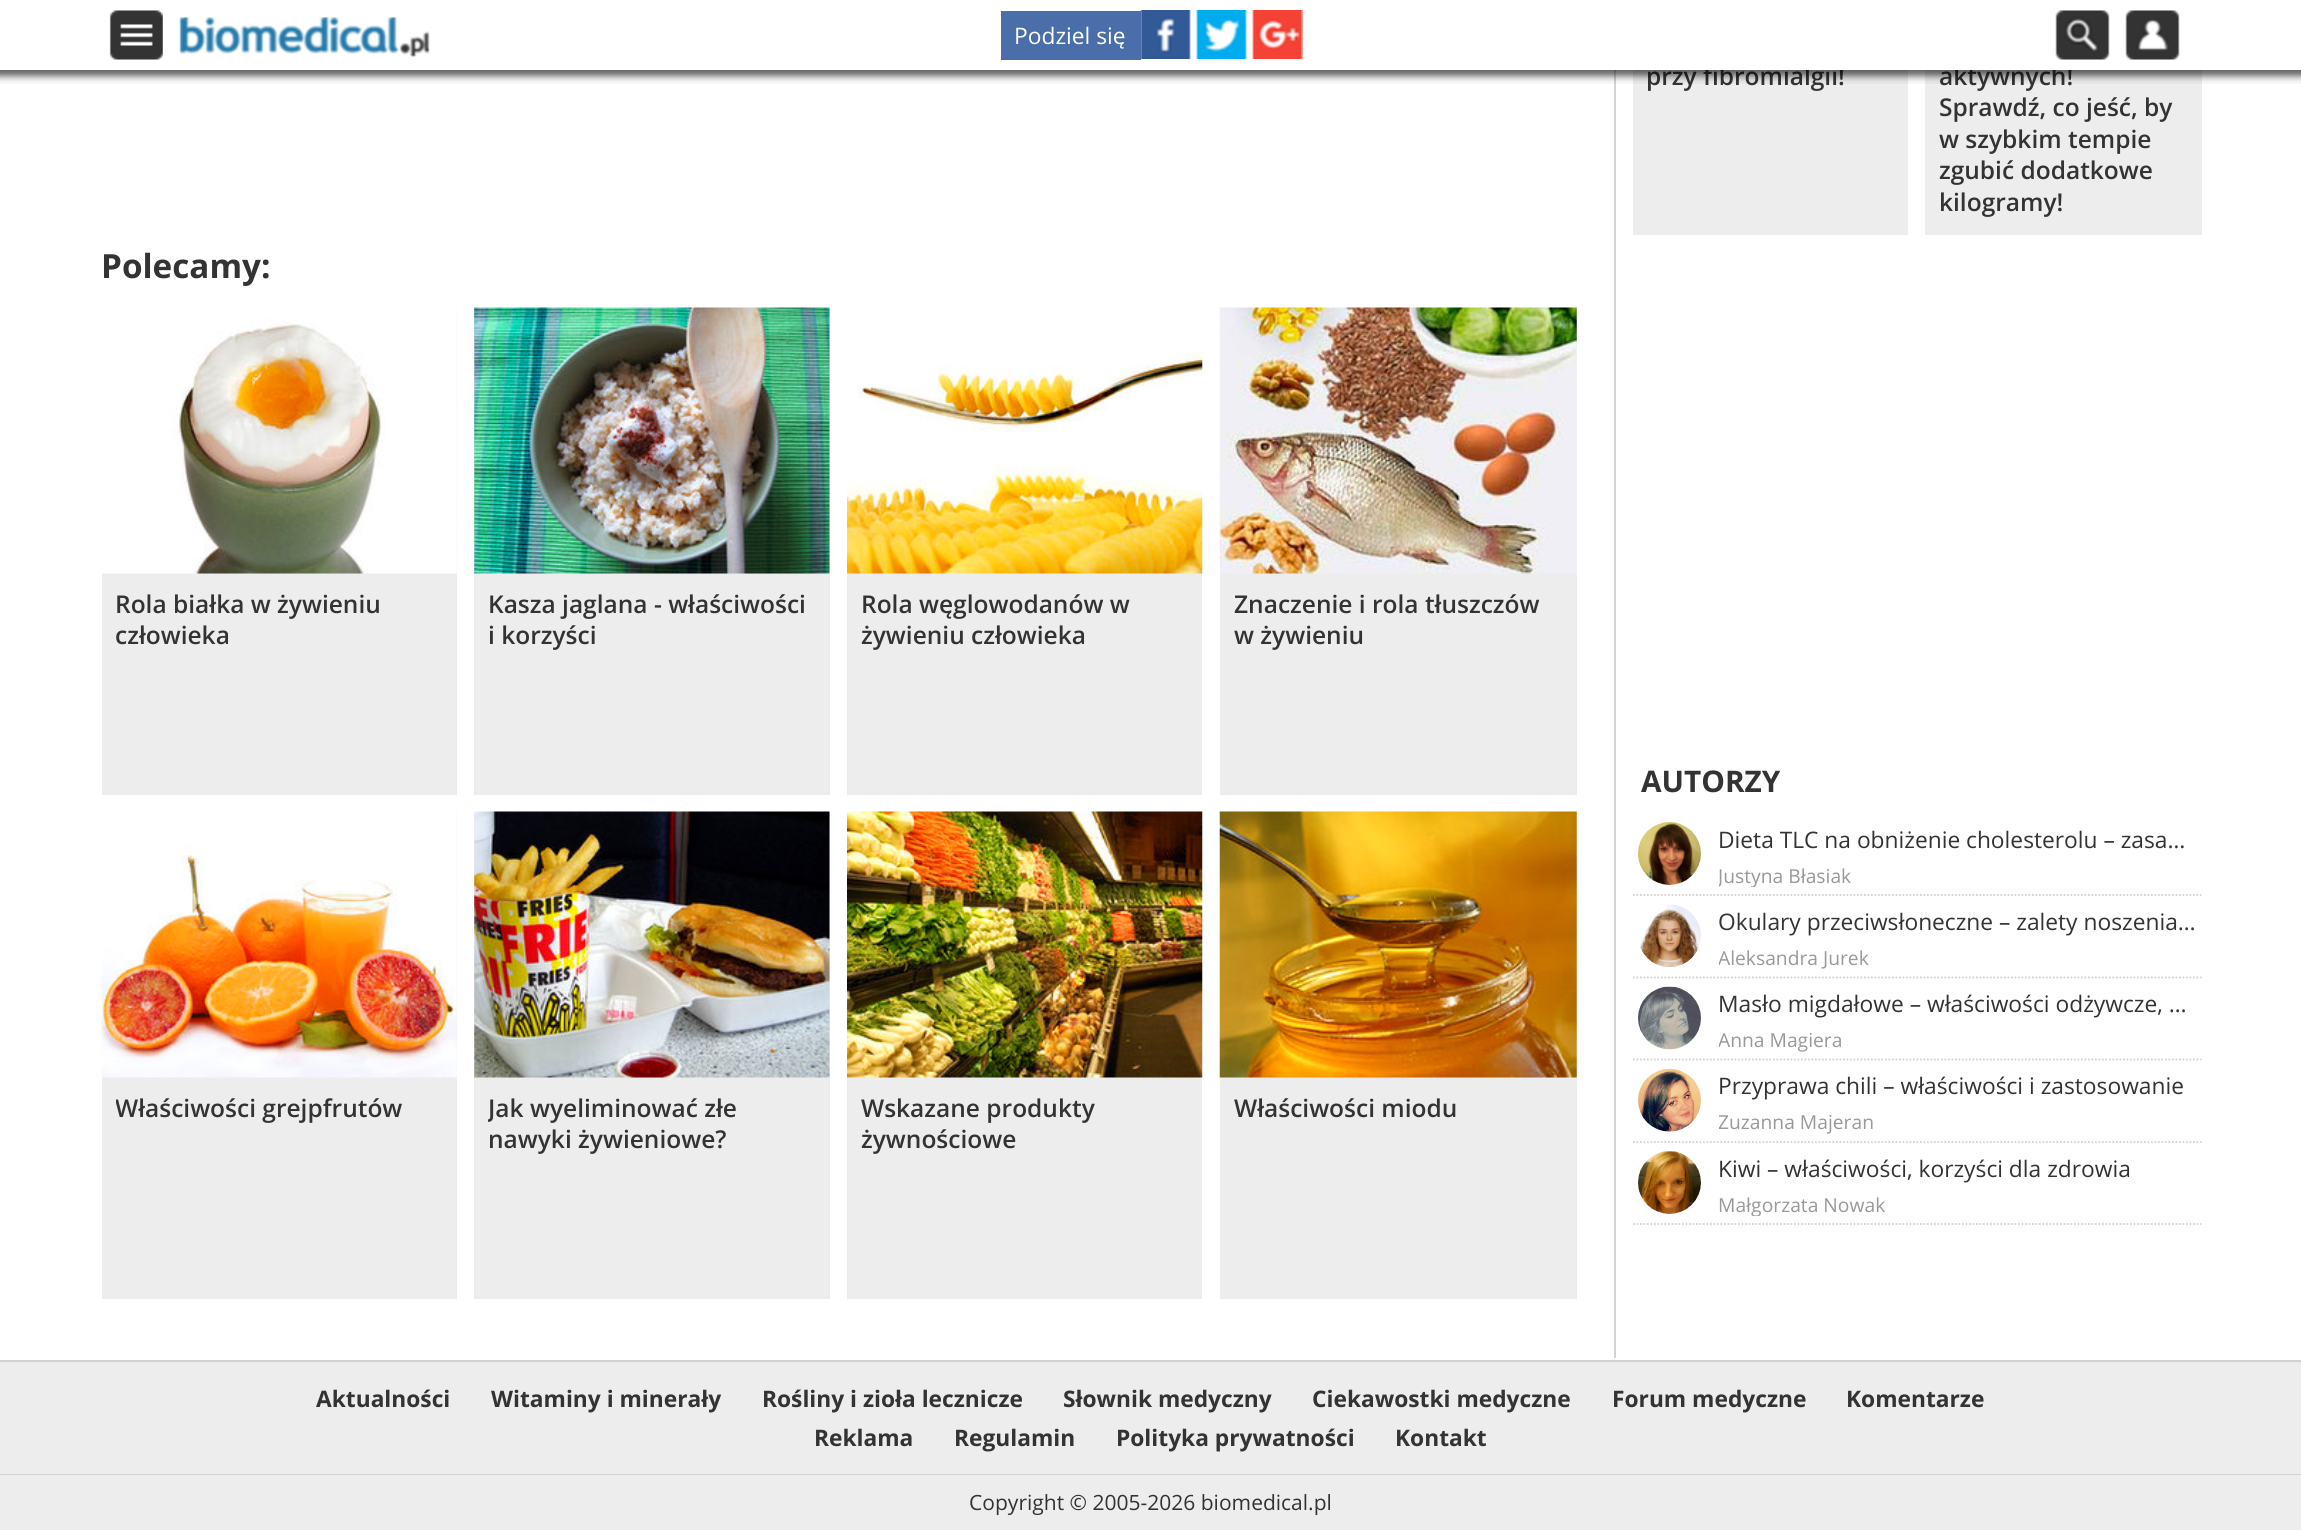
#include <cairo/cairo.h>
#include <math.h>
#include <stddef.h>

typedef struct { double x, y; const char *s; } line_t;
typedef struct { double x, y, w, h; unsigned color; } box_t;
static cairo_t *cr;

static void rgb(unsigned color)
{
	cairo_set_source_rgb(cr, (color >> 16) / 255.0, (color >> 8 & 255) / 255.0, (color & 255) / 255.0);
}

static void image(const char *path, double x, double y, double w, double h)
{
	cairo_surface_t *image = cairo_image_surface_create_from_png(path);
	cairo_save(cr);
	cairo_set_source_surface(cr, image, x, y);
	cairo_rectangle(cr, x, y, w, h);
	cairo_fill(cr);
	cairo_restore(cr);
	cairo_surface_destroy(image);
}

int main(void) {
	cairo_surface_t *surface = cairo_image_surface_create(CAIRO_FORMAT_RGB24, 2301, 1530);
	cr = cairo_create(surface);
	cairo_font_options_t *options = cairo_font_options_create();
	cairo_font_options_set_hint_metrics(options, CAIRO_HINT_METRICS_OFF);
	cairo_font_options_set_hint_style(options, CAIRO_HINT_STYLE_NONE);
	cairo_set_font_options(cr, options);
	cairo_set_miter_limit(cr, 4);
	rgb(0xffffff);
	cairo_paint(cr);
	image("img/1.png", 109, 10, 54, 50);
	image("img/2.png", 179, 17, 251, 40);
	image("img/3.png", 1140, 10, 51, 49);
	rgb(0x4a6ea9);
	cairo_rectangle(cr, 1001, 11, 140, 49);
	cairo_fill(cr);
	image("img/4.png", 1196, 10, 51, 49);
	image("img/5.png", 1252, 10, 51, 49);
	image("img/6.png", 2055, 10, 55, 50);
	image("img/7.png", 2125, 10, 55, 50);
	rgb(0xededed);
	cairo_rectangle(cr, 102, 308, 355, 487);
	cairo_fill(cr);
	image("img/9.png", 102, 308, 355, 266);
	cairo_rectangle(cr, 474, 308, 356, 487);
	cairo_fill(cr);
	image("img/10.png", 474, 307, 356, 267);
	cairo_rectangle(cr, 847, 573, 355, 222);
	cairo_fill(cr);
	image("img/11.png", 847, 308, 356, 266);
	cairo_rectangle(cr, 1220, 308, 357, 487);
	cairo_fill(cr);
	image("img/12.png", 1219, 307, 358, 267);
	cairo_rectangle(cr, 102, 812, 355, 487);
	cairo_fill(cr);
	image("img/13.png", 101, 812, 356, 266);
	cairo_rectangle(cr, 474, 812, 356, 487);
	cairo_fill(cr);
	image("img/14.png", 474, 811, 356, 267);
	cairo_rectangle(cr, 847, 1077, 355, 222);
	cairo_fill(cr);
	image("img/15.png", 847, 811, 356, 267);
	cairo_rectangle(cr, 1220, 812, 357, 487);
	cairo_fill(cr);
	image("img/16.png", 1219, 811, 358, 267);
	{
		static const box_t items[] = {
			{1614, 70, 2, 1288, 0xd2d2d2},
			{1633, 70, 275, 165, 0xededed},
			{1925, 70, 277, 165, 0xededed},
		};
		for (size_t i = 0; i < sizeof items / sizeof *items; i++) {
			rgb(items[i].color);
			cairo_rectangle(cr, items[i].x, items[i].y, items[i].w, items[i].h);
			cairo_fill(cr);
		}
	}
	cairo_new_path(cr);
	cairo_move_to(cr, 1633, 895);
	cairo_line_to(cr, 2201.5, 895);
	rgb(0xd2d2d2);
	cairo_set_line_width(cr, 1.8);
	cairo_set_dash(cr, (double[]){1.75, 1.75}, 2, 0);
	cairo_stroke(cr);
	image("img/17.png", 1638, 822, 63, 63);
	cairo_new_path(cr);
	cairo_move_to(cr, 1633, 977.5);
	cairo_line_to(cr, 2201.5, 977.5);
	cairo_stroke(cr);
	image("img/18.png", 1640, 904, 61, 63);
	cairo_new_path(cr);
	cairo_move_to(cr, 1633, 1059.5);
	cairo_line_to(cr, 2201.5, 1059.5);
	cairo_stroke(cr);
	image("img/19.png", 1638, 986, 63, 64);
	cairo_new_path(cr);
	cairo_move_to(cr, 1633, 1142);
	cairo_line_to(cr, 2201.5, 1142);
	cairo_stroke(cr);
	image("img/20.png", 1638, 1068, 63, 64);
	cairo_new_path(cr);
	cairo_move_to(cr, 1633, 1224);
	cairo_line_to(cr, 2201.5, 1224);
	cairo_stroke(cr);
	image("img/21.png", 1638, 1151, 63, 63);
	{
		static const box_t items[] = {
			{0, 1362, 2301, 112, 0xededed},
			{0, 1360, 2301, 2, 0xd2d2d2},
			{0, 1474, 2301, 1, 0xd2d2d2},
			{0, 1475, 2301, 55, 0xededed},
		};
		for (size_t i = 0; i < sizeof items / sizeof *items; i++) {
			rgb(items[i].color);
			cairo_rectangle(cr, items[i].x, items[i].y, items[i].w, items[i].h);
			cairo_fill(cr);
		}
	}
	cairo_select_font_face(cr, "Open Sans", CAIRO_FONT_SLANT_NORMAL, CAIRO_FONT_WEIGHT_NORMAL);
	cairo_set_font_size(cr, 22.75);
	rgb(0xffffff);
	cairo_move_to(cr, 1014, 44);
	cairo_show_text(cr, "Podziel się");
	cairo_select_font_face(cr, "Open Sans", CAIRO_FONT_SLANT_NORMAL, CAIRO_FONT_WEIGHT_BOLD);
	cairo_set_font_size(cr, 33.25);
	rgb(0x333333);
	cairo_move_to(cr, 101, 278);
	cairo_show_text(cr, "Polecamy:");
	cairo_select_font_face(cr, "Open Sans SemiBold", CAIRO_FONT_SLANT_NORMAL, CAIRO_FONT_WEIGHT_NORMAL);
	cairo_set_font_size(cr, 24.5);
	{
		static const line_t items[] = {
			{115, 613, "Rola białka w żywieniu"},
			{115, 644, "człowieka"},
			{488, 613, "Kasza jaglana - właściwości"},
			{488, 644, "i korzyści"},
			{861, 613, "Rola węglowodanów w"},
			{861, 644, "żywieniu człowieka"},
			{1234, 613, "Znaczenie i rola tłuszczów"},
			{1234, 644, "w żywieniu"},
		};
		for (size_t i = 0; i < sizeof items / sizeof *items; i++) {
			cairo_move_to(cr, items[i].x, items[i].y);
			cairo_show_text(cr, items[i].s);
		}
	}
	cairo_save(cr);
	cairo_rectangle(cr, 116, 1092, 327, 193);
	cairo_clip(cr);
	cairo_move_to(cr, 115, 1117);
	cairo_show_text(cr, "Właściwości grejpfrutów");
	cairo_restore(cr);
	cairo_save(cr);
	cairo_rectangle(cr, 488, 1092, 328, 193);
	cairo_clip(cr);
	cairo_move_to(cr, 488, 1117);
	cairo_show_text(cr, "Jak wyeliminować złe");
	cairo_restore(cr);
	{
		static const line_t items[] = {
			{488, 1148, "nawyki żywieniowe?"},
			{861, 1117, "Wskazane produkty"},
			{861, 1148, "żywnościowe"},
			{1234, 1117, "Właściwości miodu"},
			{1646, 85, "przy fibromialgii!"},
			{1939, 85, "aktywnych!"},
		};
		for (size_t i = 0; i < sizeof items / sizeof *items; i++) {
			cairo_move_to(cr, items[i].x, items[i].y);
			cairo_show_text(cr, items[i].s);
		}
	}
	image("img/8.png", 0, 70, 2301, 14);
	rgb(0xffffff);
	cairo_rectangle(cr, 1705, 66, 367, 4);
	cairo_fill(cr);
	rgb(0x333333);
	{
		static const line_t items[] = {
			{1939, 116, "Sprawdź, co jeść, by"},
			{1939, 148, "w szybkim tempie"},
			{1939, 179, "zgubić dodatkowe"},
			{1939, 211, "kilogramy!"},
		};
		for (size_t i = 0; i < sizeof items / sizeof *items; i++) {
			cairo_move_to(cr, items[i].x, items[i].y);
			cairo_show_text(cr, items[i].s);
		}
	}
	cairo_select_font_face(cr, "Open Sans", CAIRO_FONT_SLANT_NORMAL, CAIRO_FONT_WEIGHT_BOLD);
	cairo_set_font_size(cr, 29.75);
	cairo_move_to(cr, 1641, 792);
	cairo_show_text(cr, "AUTORZY");
	cairo_select_font_face(cr, "Open Sans", CAIRO_FONT_SLANT_NORMAL, CAIRO_FONT_WEIGHT_NORMAL);
	cairo_set_font_size(cr, 22.75);
	cairo_move_to(cr, 1718, 848);
	cairo_show_text(cr, "Dieta TLC na obniżenie cholesterolu – zasa…");
	cairo_save(cr);
	cairo_rectangle(cr, 1719, 861, 311, 26);
	cairo_clip(cr);
	cairo_set_font_size(cr, 19.25);
	rgb(0x999999);
	cairo_move_to(cr, 1718, 883);
	cairo_show_text(cr, "Justyna Błasiak");
	cairo_restore(cr);
	cairo_move_to(cr, 1718, 930);
	cairo_show_text(cr, "Okulary przeciwsłoneczne – zalety noszenia…");
	cairo_save(cr);
	cairo_rectangle(cr, 1719, 943, 311, 27);
	cairo_clip(cr);
	cairo_set_font_size(cr, 19.25);
	rgb(0x999999);
	cairo_move_to(cr, 1718, 965);
	cairo_show_text(cr, "Aleksandra Jurek");
	cairo_restore(cr);
	cairo_move_to(cr, 1718, 1012);
	cairo_show_text(cr, "Masło migdałowe – właściwości odżywcze, …");
	cairo_save(cr);
	cairo_rectangle(cr, 1719, 1026, 311, 26);
	cairo_clip(cr);
	cairo_set_font_size(cr, 19.25);
	rgb(0x999999);
	cairo_move_to(cr, 1718, 1047);
	cairo_show_text(cr, "Anna Magiera");
	cairo_restore(cr);
	cairo_move_to(cr, 1718, 1094);
	cairo_show_text(cr, "Przyprawa chili – właściwości i zastosowanie");
	cairo_save(cr);
	cairo_rectangle(cr, 1719, 1108, 311, 26);
	cairo_clip(cr);
	cairo_set_font_size(cr, 19.25);
	rgb(0x999999);
	cairo_move_to(cr, 1718, 1129);
	cairo_show_text(cr, "Zuzanna Majeran");
	cairo_restore(cr);
	cairo_move_to(cr, 1718, 1177);
	cairo_show_text(cr, "Kiwi – właściwości, korzyści dla zdrowia");
	cairo_save(cr);
	cairo_rectangle(cr, 1719, 1190, 311, 26);
	cairo_clip(cr);
	cairo_set_font_size(cr, 19.25);
	rgb(0x999999);
	cairo_move_to(cr, 1718, 1212);
	cairo_show_text(cr, "Małgorzata Nowak");
	cairo_restore(cr);
	cairo_select_font_face(cr, "Open Sans", CAIRO_FONT_SLANT_NORMAL, CAIRO_FONT_WEIGHT_BOLD);
	{
		static const line_t items[] = {
			{316, 1407, "Aktualności"},
			{491, 1407, "Witaminy i minerały"},
			{762, 1407, "Rośliny i zioła lecznicze"},
			{1063, 1407, "Słownik medyczny"},
			{1312, 1407, "Ciekawostki medyczne"},
			{1612, 1407, "Forum medyczne"},
			{1846, 1407, "Komentarze"},
			{814, 1446, "Reklama"},
			{954, 1446, "Regulamin"},
			{1116, 1446, "Polityka prywatności"},
			{1395, 1446, "Kontakt"},
		};
		for (size_t i = 0; i < sizeof items / sizeof *items; i++) {
			cairo_move_to(cr, items[i].x, items[i].y);
			cairo_show_text(cr, items[i].s);
		}
	}
	cairo_select_font_face(cr, "Open Sans", CAIRO_FONT_SLANT_NORMAL, CAIRO_FONT_WEIGHT_NORMAL);
	cairo_set_font_size(cr, 21);
	cairo_move_to(cr, 969, 1510);
	cairo_show_text(cr, "Copyright © 2005-2026 biomedical.pl");
	cairo_surface_write_to_png(surface, "page.png");
	cairo_font_options_destroy(options);
	cairo_destroy(cr);
	cairo_surface_destroy(surface);
	return 0;
}
